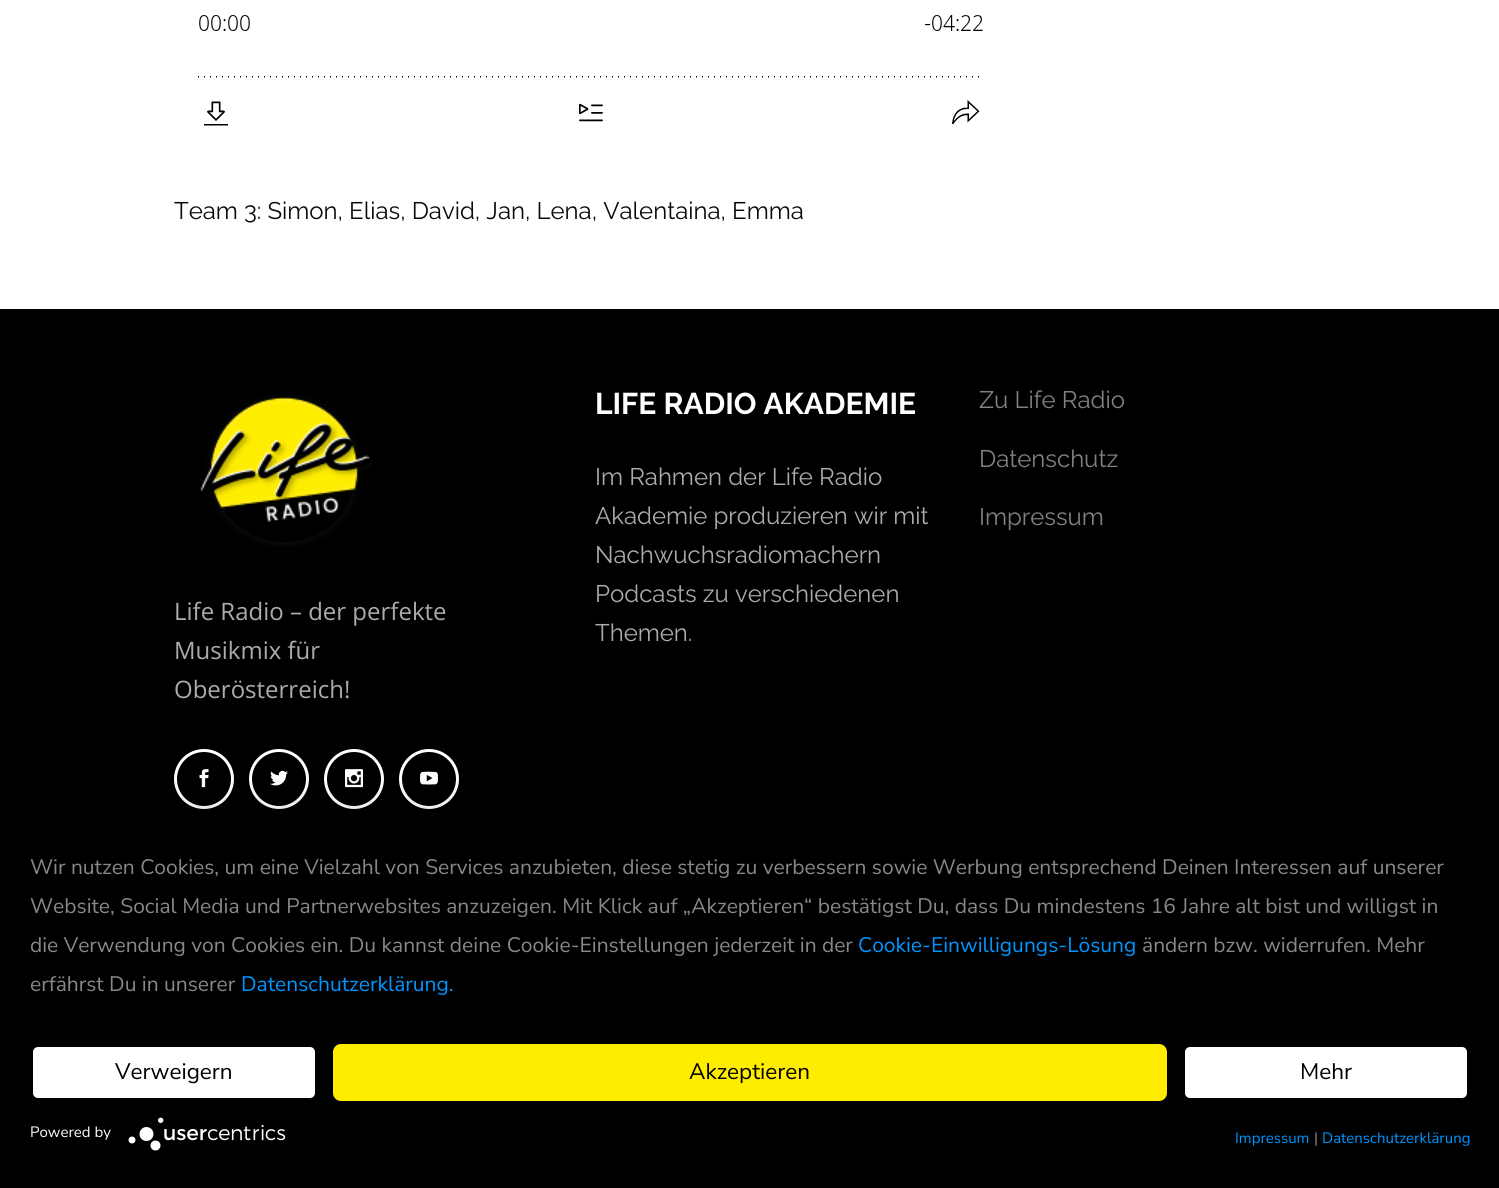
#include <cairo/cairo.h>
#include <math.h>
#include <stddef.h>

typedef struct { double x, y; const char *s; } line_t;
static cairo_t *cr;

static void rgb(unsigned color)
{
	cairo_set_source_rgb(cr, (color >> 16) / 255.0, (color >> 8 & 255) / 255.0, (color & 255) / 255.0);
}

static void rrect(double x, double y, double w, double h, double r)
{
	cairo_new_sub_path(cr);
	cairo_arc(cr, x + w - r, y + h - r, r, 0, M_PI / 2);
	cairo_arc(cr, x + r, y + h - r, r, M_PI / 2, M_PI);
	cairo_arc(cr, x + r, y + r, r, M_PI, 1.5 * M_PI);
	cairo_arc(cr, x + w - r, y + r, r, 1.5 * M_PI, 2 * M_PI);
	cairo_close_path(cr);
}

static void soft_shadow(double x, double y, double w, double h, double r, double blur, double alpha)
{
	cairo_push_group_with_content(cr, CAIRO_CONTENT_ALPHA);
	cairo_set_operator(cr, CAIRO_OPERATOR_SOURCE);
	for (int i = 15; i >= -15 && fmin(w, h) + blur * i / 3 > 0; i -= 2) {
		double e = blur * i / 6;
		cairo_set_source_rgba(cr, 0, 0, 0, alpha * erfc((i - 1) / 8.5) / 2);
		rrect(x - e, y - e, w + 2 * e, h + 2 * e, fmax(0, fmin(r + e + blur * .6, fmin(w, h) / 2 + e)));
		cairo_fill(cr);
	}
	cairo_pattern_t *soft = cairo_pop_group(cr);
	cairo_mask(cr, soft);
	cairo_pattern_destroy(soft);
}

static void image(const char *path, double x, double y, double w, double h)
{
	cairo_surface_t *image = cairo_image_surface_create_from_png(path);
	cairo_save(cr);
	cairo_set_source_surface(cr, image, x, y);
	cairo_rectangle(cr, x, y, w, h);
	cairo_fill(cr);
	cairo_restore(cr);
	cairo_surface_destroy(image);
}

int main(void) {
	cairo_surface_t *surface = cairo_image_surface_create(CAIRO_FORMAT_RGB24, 1499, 1188);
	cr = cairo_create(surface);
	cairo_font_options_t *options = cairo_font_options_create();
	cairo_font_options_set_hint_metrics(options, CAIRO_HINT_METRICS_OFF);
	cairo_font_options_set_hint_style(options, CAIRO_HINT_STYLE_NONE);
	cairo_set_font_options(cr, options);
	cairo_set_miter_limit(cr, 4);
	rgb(0xffffff);
	cairo_paint(cr);
	image("img/1.png", 198, 15, 785, 111);
	rgb(0x000000);
	cairo_rectangle(cr, 0, 309, 1499, 510);
	cairo_fill(cr);
	image("img/2.png", 200, 395, 173, 152);
	cairo_arc(cr, 204, 779, 28.5, 0, 2 * M_PI);
	rgb(0xffffff);
	cairo_set_line_width(cr, 3);
	cairo_stroke(cr);
	image("img/3.png", 199, 769, 10, 19);
	cairo_arc(cr, 279, 779, 28.5, 0, 2 * M_PI);
	cairo_stroke(cr);
	image("img/4.png", 270, 770, 18, 16);
	cairo_arc(cr, 354, 779, 28.5, 0, 2 * M_PI);
	cairo_stroke(cr);
	image("img/5.png", 345, 769, 18, 19);
	cairo_arc(cr, 429, 779, 28.5, 0, 2 * M_PI);
	cairo_stroke(cr);
	image("img/6.png", 420, 771, 18, 14);
	rgb(0x000000);
	soft_shadow(0, 828, 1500, 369, 0, 27, 0.3);
	rgb(0x000000);
	cairo_rectangle(cr, 0, 819, 1499, 369);
	cairo_fill(cr);
	rgb(0xffffff);
	rrect(31.5, 1045.5, 285, 54, 6.5);
	cairo_fill_preserve(cr);
	rgb(0x000000);
	cairo_stroke(cr);
	rgb(0xffed00);
	rrect(334.5, 1045.5, 831, 54, 6.5);
	cairo_fill_preserve(cr);
	cairo_stroke(cr);
	rgb(0xffffff);
	rrect(1183.5, 1045.5, 285, 54, 6.5);
	cairo_fill_preserve(cr);
	rgb(0x000000);
	cairo_stroke(cr);
	image("img/7.png", 128, 1117, 158, 34);
	cairo_select_font_face(cr, "Raleway", CAIRO_FONT_SLANT_NORMAL, CAIRO_FONT_WEIGHT_NORMAL);
	cairo_set_font_size(cr, 24);
	rgb(0x0a0a0a);
	cairo_move_to(cr, 174, 219);
	cairo_show_text(cr, "Team 3: Simon, Elias, David, Jan, Lena, Valentaina, Emma");
	cairo_select_font_face(cr, "Open Sans", CAIRO_FONT_SLANT_NORMAL, CAIRO_FONT_WEIGHT_NORMAL);
	rgb(0xababab);
	{
		static const line_t items[] = {
			{174, 620, "Life Radio – der perfekte"},
			{174, 659, "Musikmix für"},
			{174, 698, "Oberösterreich!"},
		};
		for (size_t i = 0; i < sizeof items / sizeof *items; i++) {
			cairo_move_to(cr, items[i].x, items[i].y);
			cairo_show_text(cr, items[i].s);
		}
	}
	cairo_select_font_face(cr, "Raleway", CAIRO_FONT_SLANT_NORMAL, CAIRO_FONT_WEIGHT_BOLD);
	cairo_set_font_size(cr, 30);
	rgb(0xffffff);
	cairo_move_to(cr, 595, 414);
	cairo_show_text(cr, "LIFE RADIO AKADEMIE");
	cairo_select_font_face(cr, "Raleway", CAIRO_FONT_SLANT_NORMAL, CAIRO_FONT_WEIGHT_NORMAL);
	cairo_set_font_size(cr, 24);
	rgb(0xababab);
	{
		static const line_t items[] = {
			{595, 485, "Im Rahmen der Life Radio"},
			{595, 524, "Akademie produzieren wir mit"},
			{595, 563, "Nachwuchsradiomachern"},
			{595, 602, "Podcasts zu verschiedenen"},
			{595, 641, "Themen."},
		};
		for (size_t i = 0; i < sizeof items / sizeof *items; i++) {
			cairo_move_to(cr, items[i].x, items[i].y);
			cairo_show_text(cr, items[i].s);
		}
	}
	rgb(0x818181);
	{
		static const line_t items[] = {
			{979, 408, "Zu Life Radio"},
			{979, 467, "Datenschutz"},
			{979, 525, "Impressum"},
		};
		for (size_t i = 0; i < sizeof items / sizeof *items; i++) {
			cairo_move_to(cr, items[i].x, items[i].y);
			cairo_show_text(cr, items[i].s);
		}
	}
	cairo_select_font_face(cr, "Nunito Sans", CAIRO_FONT_SLANT_NORMAL, CAIRO_FONT_WEIGHT_NORMAL);
	cairo_set_font_size(cr, 21);
	rgb(0x888888);
	{
		static const line_t items[] = {
			{30, 874, "Wir nutzen Cookies, um eine Vielzahl von Services anzubieten, diese stetig zu verbessern sowie Werbung entsprechend Deinen Interessen auf unserer"},
			{30, 913, "Website, Social Media und Partnerwebsites anzuzeigen. Mit Klick auf „Akzeptieren“ bestätigst Du, dass Du mindestens 16 Jahre alt bist und willigst in"},
			{30, 952, "die Verwendung von Cookies ein. Du kannst deine Cookie-Einstellungen jederzeit in der"},
		};
		for (size_t i = 0; i < sizeof items / sizeof *items; i++) {
			cairo_move_to(cr, items[i].x, items[i].y);
			cairo_show_text(cr, items[i].s);
		}
	}
	rgb(0x0096ff);
	cairo_move_to(cr, 858, 952);
	cairo_show_text(cr, "Cookie-Einwilligungs-Lösung");
	rgb(0x888888);
	cairo_move_to(cr, 1142, 952);
	cairo_show_text(cr, "ändern bzw. widerrufen. Mehr");
	cairo_move_to(cr, 30, 991);
	cairo_show_text(cr, "erfährst Du in unserer");
	rgb(0x0096ff);
	cairo_move_to(cr, 241, 991);
	cairo_show_text(cr, "Datenschutzerklärung.");
	cairo_set_font_size(cr, 22.5);
	rgb(0x000000);
	{
		static const line_t items[] = {
			{115, 1079, "Verweigern"},
			{689, 1079, "Akzeptieren"},
			{1300, 1079, "Mehr"},
		};
		for (size_t i = 0; i < sizeof items / sizeof *items; i++) {
			cairo_move_to(cr, items[i].x, items[i].y);
			cairo_show_text(cr, items[i].s);
		}
	}
	cairo_set_font_size(cr, 15);
	rgb(0xffffff);
	cairo_move_to(cr, 30, 1137);
	cairo_show_text(cr, "Powered by");
	rgb(0x0096ff);
	cairo_move_to(cr, 1235, 1143);
	cairo_show_text(cr, "Impressum");
	rgb(0x888888);
	cairo_move_to(cr, 1314, 1143);
	cairo_show_text(cr, "|");
	rgb(0x0096ff);
	cairo_move_to(cr, 1322, 1143);
	cairo_show_text(cr, "Datenschutzerklärung");
	cairo_surface_write_to_png(surface, "page.png");
	cairo_font_options_destroy(options);
	cairo_destroy(cr);
	cairo_surface_destroy(surface);
	return 0;
}
